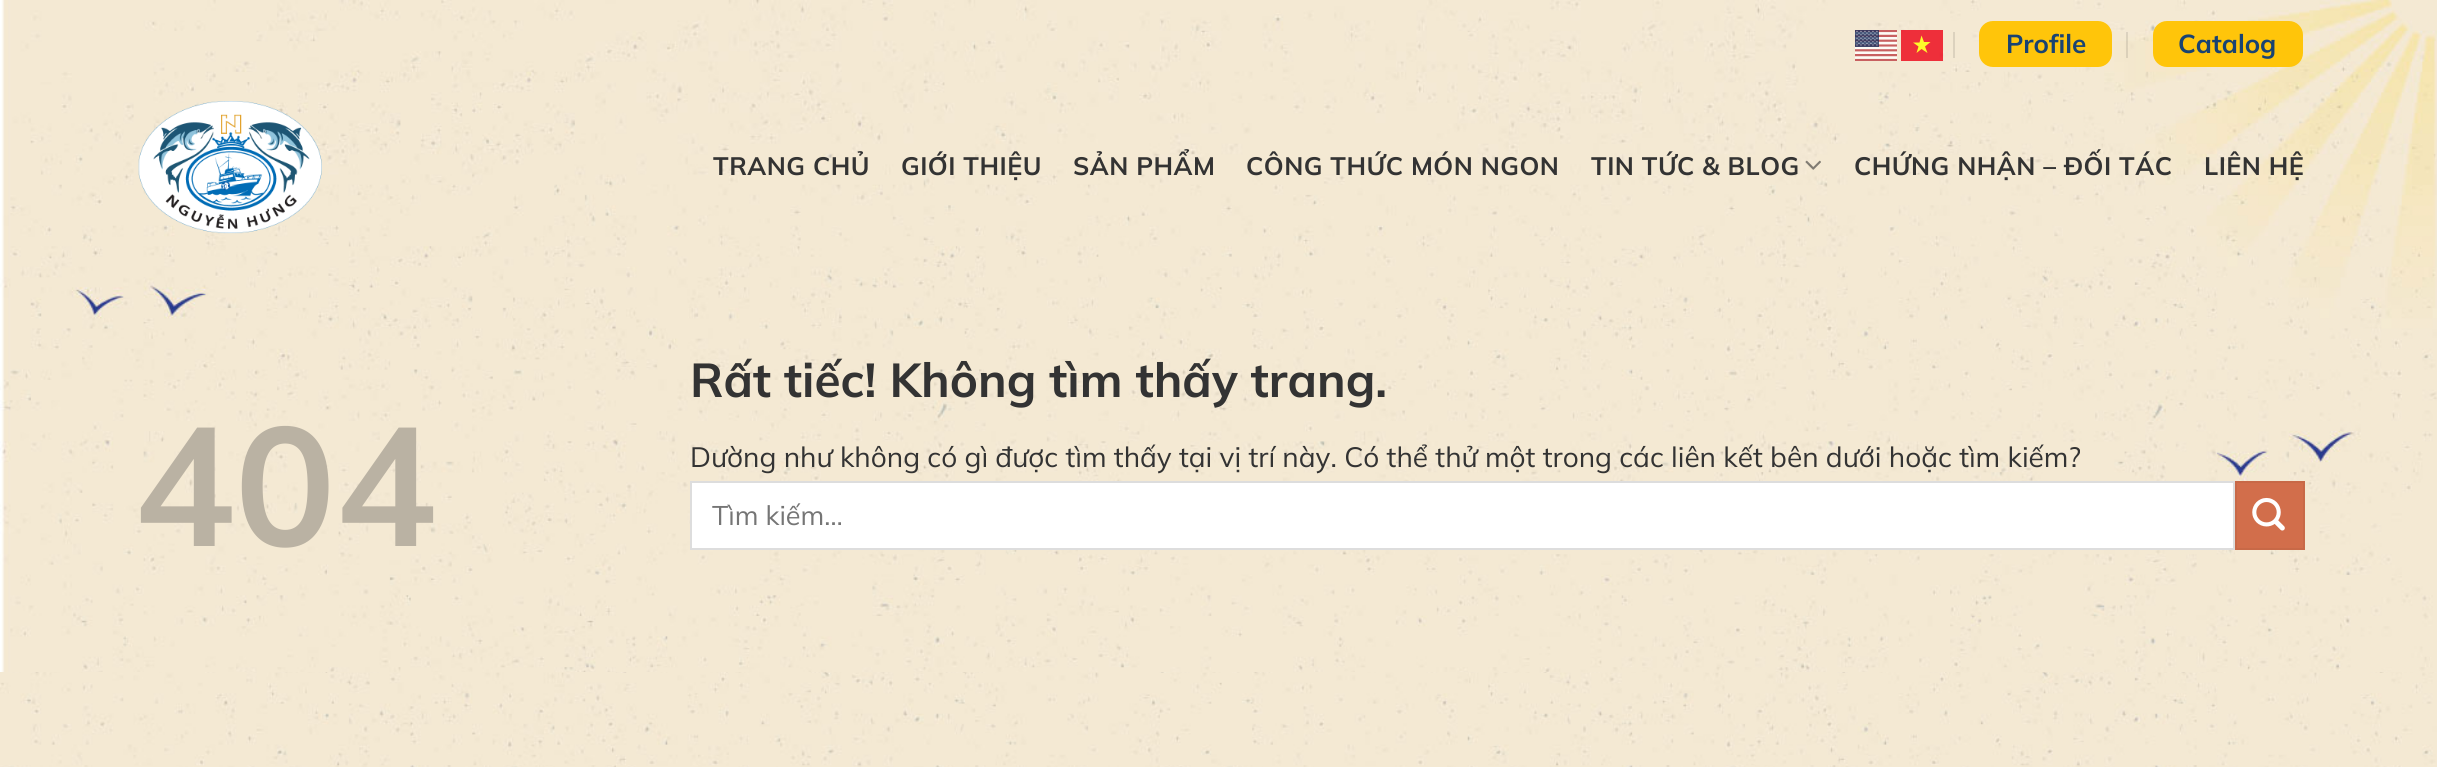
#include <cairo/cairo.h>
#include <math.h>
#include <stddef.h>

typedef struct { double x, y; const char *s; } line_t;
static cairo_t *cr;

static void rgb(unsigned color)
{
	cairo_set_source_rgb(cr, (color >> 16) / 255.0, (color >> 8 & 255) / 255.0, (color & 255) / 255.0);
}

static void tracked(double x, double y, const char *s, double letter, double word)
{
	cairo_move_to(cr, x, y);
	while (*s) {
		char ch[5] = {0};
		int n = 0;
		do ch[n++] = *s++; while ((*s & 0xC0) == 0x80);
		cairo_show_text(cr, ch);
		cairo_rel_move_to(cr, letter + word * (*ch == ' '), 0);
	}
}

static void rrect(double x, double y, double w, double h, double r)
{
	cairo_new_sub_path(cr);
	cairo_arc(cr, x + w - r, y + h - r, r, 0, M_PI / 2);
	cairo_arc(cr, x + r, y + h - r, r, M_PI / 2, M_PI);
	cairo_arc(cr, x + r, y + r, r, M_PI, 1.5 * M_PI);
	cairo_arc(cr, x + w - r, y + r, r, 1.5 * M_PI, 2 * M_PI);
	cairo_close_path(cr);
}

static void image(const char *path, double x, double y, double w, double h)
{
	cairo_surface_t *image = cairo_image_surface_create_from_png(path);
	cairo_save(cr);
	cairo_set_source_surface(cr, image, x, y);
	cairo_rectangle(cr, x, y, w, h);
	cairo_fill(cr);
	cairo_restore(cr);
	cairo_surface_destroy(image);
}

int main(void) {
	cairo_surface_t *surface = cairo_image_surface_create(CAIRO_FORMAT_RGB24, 2437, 767);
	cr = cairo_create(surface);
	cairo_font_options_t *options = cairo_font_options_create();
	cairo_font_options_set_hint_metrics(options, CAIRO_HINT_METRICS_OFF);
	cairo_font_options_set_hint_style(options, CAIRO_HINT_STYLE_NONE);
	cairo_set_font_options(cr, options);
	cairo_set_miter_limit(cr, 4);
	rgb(0xffffff);
	cairo_paint(cr);
	image("img/1.png", 0, 0, 2437, 672);
	image("img/2.png", 1855, 30, 42, 31);
	cairo_set_source_rgba(cr, 0.925, 0, 0.082, 0.8);
	cairo_rectangle(cr, 1901, 30, 42, 31);
	cairo_fill(cr);
	rgb(0xfdfb2a);
	cairo_set_fill_rule(cr, CAIRO_FILL_RULE_EVEN_ODD);
	cairo_new_path(cr);
	cairo_move_to(cr, 1927.5, 53);
	cairo_line_to(cr, 1921.5, 49);
	cairo_line_to(cr, 1916.5, 53);
	cairo_line_to(cr, 1918.5, 46.5);
	cairo_line_to(cr, 1913, 42.5);
	cairo_line_to(cr, 1919.5, 42.5);
	cairo_line_to(cr, 1921.5, 35.5);
	cairo_line_to(cr, 1924, 42);
	cairo_line_to(cr, 1930.5, 42);
	cairo_line_to(cr, 1925, 46.5);
	cairo_close_path(cr);
	cairo_fill(cr);
	rgb(0xffc50a);
	rrect(1979, 21, 133, 46, 14);
	cairo_fill(cr);
	rgb(0xdcd2be);
	cairo_rectangle(cr, 1953, 32, 2, 26);
	cairo_fill(cr);
	rgb(0xffc50a);
	rrect(2153, 21, 150, 46, 14);
	cairo_fill(cr);
	cairo_set_source_rgba(cr, 0, 0, 0, 0.1);
	cairo_rectangle(cr, 2126, 32, 2, 26);
	cairo_fill(cr);
	image("img/3.png", 138, 101, 184, 133);
	image("img/4.png", 1805, 160, 16, 10);
	rgb(0xffffff);
	cairo_rectangle(cr, 691, 482, 1543, 67);
	cairo_fill_preserve(cr);
	rgb(0xdddddd);
	cairo_stroke(cr);
	rgb(0xd26e4b);
	cairo_rectangle(cr, 2236, 482, 68, 67);
	cairo_fill_preserve(cr);
	rgb(0xc86947);
	cairo_stroke(cr);
	image("img/5.png", 2252, 497, 33, 34);
	image("img/6.png", 0, 672, 2437, 95);
	cairo_select_font_face(cr, "Mulish", CAIRO_FONT_SLANT_NORMAL, CAIRO_FONT_WEIGHT_BOLD);
	cairo_set_font_size(cr, 26);
	rgb(0x194372);
	cairo_move_to(cr, 2006, 53);
	cairo_show_text(cr, "Profile");
	cairo_move_to(cr, 2178, 53);
	cairo_show_text(cr, "Catalog");
	cairo_set_font_size(cr, 25.25);
	rgb(0x333333);
	{
		static const line_t items[] = {
			{713, 175, "TRANG CHỦ"},
			{901, 175, "GIỚI THIỆU"},
			{1073, 175, "SẢN PHẨM"},
			{1246, 175, "CÔNG THỨC MÓN NGON"},
			{1591, 175, "TIN TỨC & BLOG"},
			{1854, 175, "CHỨNG NHẬN – ĐỐI TÁC"},
			{2204, 175, "LIÊN HỆ"},
		};
		for (size_t i = 0; i < sizeof items / sizeof *items; i++) {
			tracked(items[i].x, items[i].y, items[i].s, 0.5, 0);
		}
	}
	cairo_set_font_size(cr, 168);
	rgb(0xbab2a3);
	cairo_move_to(cr, 134, 546);
	cairo_show_text(cr, "404");
	cairo_set_font_size(cr, 47.6);
	rgb(0x333333);
	cairo_move_to(cr, 690, 397);
	cairo_show_text(cr, "Rất tiếc! Không tìm thấy trang.");
	cairo_select_font_face(cr, "Mulish", CAIRO_FONT_SLANT_NORMAL, CAIRO_FONT_WEIGHT_NORMAL);
	cairo_set_font_size(cr, 28);
	cairo_move_to(cr, 690, 467);
	cairo_show_text(cr, "Dường như không có gì được tìm thấy tại vị trí này. Có thể thử một trong các liên kết bên dưới hoặc tìm kiếm?");
	cairo_set_font_size(cr, 27);
	rgb(0x757575);
	cairo_move_to(cr, 712, 525);
	cairo_show_text(cr, "Tìm kiếm…");
	cairo_surface_write_to_png(surface, "page.png");
	cairo_font_options_destroy(options);
	cairo_destroy(cr);
	cairo_surface_destroy(surface);
	return 0;
}
